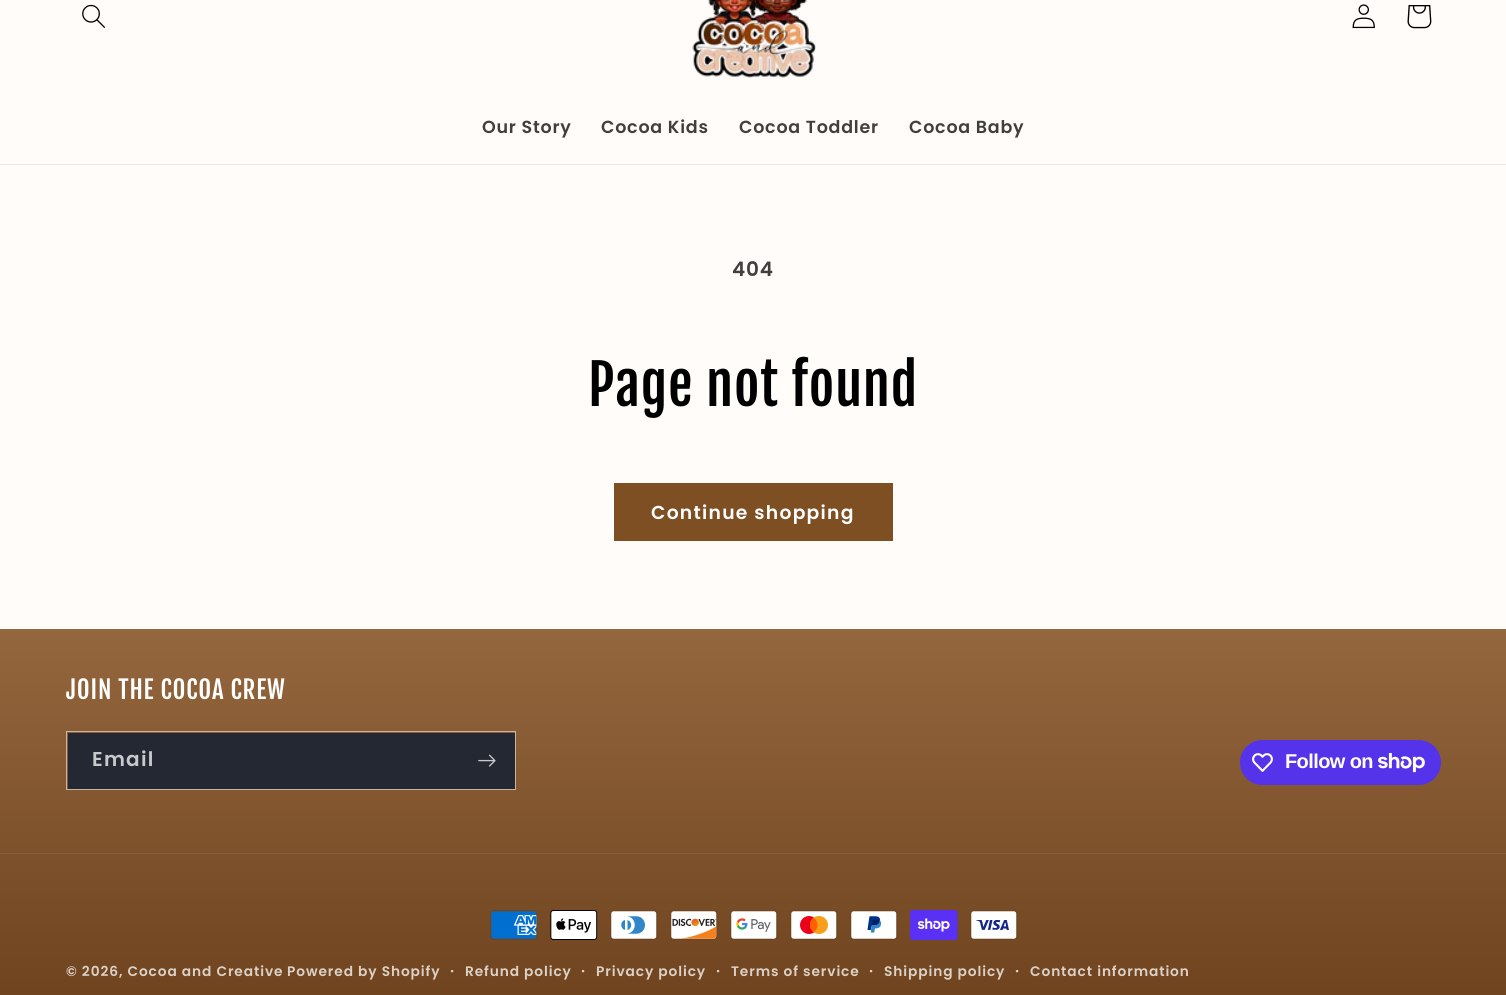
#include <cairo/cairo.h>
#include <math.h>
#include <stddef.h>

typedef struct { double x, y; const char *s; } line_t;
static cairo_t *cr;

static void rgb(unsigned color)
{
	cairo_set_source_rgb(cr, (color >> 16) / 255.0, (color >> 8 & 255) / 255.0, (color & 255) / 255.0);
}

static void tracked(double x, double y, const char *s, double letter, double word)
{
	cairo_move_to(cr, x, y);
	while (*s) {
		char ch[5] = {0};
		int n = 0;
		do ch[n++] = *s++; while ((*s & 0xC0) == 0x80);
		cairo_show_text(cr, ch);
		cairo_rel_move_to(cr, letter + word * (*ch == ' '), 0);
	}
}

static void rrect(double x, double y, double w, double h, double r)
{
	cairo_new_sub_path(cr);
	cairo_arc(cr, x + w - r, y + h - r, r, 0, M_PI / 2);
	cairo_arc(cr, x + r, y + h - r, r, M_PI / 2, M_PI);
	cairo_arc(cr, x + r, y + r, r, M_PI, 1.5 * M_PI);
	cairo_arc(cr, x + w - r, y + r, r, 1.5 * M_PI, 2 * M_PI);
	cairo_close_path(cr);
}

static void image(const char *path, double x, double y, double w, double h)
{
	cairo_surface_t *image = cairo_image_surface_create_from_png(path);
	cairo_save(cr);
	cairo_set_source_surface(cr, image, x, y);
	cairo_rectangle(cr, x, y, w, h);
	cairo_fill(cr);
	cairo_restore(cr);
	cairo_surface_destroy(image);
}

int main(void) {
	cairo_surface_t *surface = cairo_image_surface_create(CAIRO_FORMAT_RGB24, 1506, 995);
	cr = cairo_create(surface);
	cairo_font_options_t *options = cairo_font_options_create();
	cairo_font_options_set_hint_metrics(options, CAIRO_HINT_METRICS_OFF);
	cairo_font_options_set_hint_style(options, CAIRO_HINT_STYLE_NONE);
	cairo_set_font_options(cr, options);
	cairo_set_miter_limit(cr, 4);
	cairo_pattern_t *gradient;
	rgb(0xfffcf9);
	cairo_paint(cr);
	rgb(0xebe8e5);
	cairo_rectangle(cr, 0, 164, 1506, 1);
	cairo_fill(cr);
	image("img/1.png", 82, 4, 23, 24);
	image("img/2.png", 692, 0, 124, 78);
	image("img/3.png", 1352, 4, 23, 25);
	image("img/4.png", 1407, 5, 25, 24);
	rgb(0x7f4f24);
	cairo_rectangle(cr, 614, 483, 279, 58);
	cairo_fill(cr);
	gradient = cairo_pattern_create_linear(753, 995, 753, 0);
	cairo_pattern_add_color_stop_rgba(gradient, 0, 0.435, 0.267, 0.118, 1);
	cairo_pattern_add_color_stop_rgba(gradient, 1, 0.831, 0.635, 0.463, 1);
	cairo_set_source(cr, gradient);
	cairo_pattern_destroy(gradient);
	cairo_rectangle(cr, 0, 629, 1506, 366);
	cairo_fill(cr);
	rgb(0x242833);
	cairo_rectangle(cr, 68, 733, 447, 56);
	cairo_fill(cr);
	cairo_rectangle(cr, 66.5, 731.5, 449, 58);
	cairo_set_source_rgba(cr, 1, 1, 1, 0.55);
	cairo_set_line_width(cr, 1);
	cairo_stroke(cr);
	image("img/5.png", 478, 754, 18, 13);
	rgb(0x5433eb);
	rrect(1240, 740, 201, 45, 22.5);
	cairo_fill(cr);
	image("img/6.png", 1252, 753, 21, 19);
	image("img/7.png", 1378, 753, 47, 20);
	rgb(0x875f3c);
	cairo_rectangle(cr, 0, 853, 1506, 1);
	cairo_fill(cr);
	image("img/8.png", 490, 910, 48, 30);
	image("img/9.png", 550, 910, 48, 30);
	image("img/10.png", 610, 910, 48, 30);
	image("img/11.png", 670, 910, 48, 30);
	image("img/12.png", 730, 910, 48, 30);
	image("img/13.png", 790, 910, 48, 30);
	image("img/14.png", 850, 910, 48, 30);
	image("img/15.png", 910, 910, 48, 30);
	image("img/16.png", 970, 910, 48, 30);
	cairo_select_font_face(cr, "Poppins SemiBold", CAIRO_FONT_SLANT_NORMAL, CAIRO_FONT_WEIGHT_NORMAL);
	cairo_set_font_size(cr, 17.5);
	rgb(0x403f3e);
	{
		static const line_t items[] = {
			{482, 133, "Our Story"},
			{601, 133, "Cocoa Kids"},
			{739, 133, "Cocoa Toddler"},
			{909, 133, "Cocoa Baby"},
		};
		for (size_t i = 0; i < sizeof items / sizeof *items; i++) {
			tracked(items[i].x, items[i].y, items[i].s, 0.75, 0);
		}
	}
	cairo_set_font_size(cr, 20);
	tracked(732, 276, "404", 0.75, 0);
	cairo_select_font_face(cr, "Fjalla One", CAIRO_FONT_SLANT_NORMAL, CAIRO_FONT_WEIGHT_NORMAL);
	cairo_set_font_size(cr, 55);
	rgb(0x000000);
	tracked(588, 406, "Page not found", 0.8, 0);
	cairo_select_font_face(cr, "Poppins SemiBold", CAIRO_FONT_SLANT_NORMAL, CAIRO_FONT_WEIGHT_NORMAL);
	cairo_set_font_size(cr, 18.75);
	rgb(0xffffff);
	tracked(651, 519, "Continue shopping", 1.25, 0);
	cairo_select_font_face(cr, "Fjalla One", CAIRO_FONT_SLANT_NORMAL, CAIRO_FONT_WEIGHT_NORMAL);
	cairo_set_font_size(cr, 24.75);
	tracked(66, 699, "JOIN THE COCOA CREW", 0.8, 0);
	cairo_select_font_face(cr, "Poppins SemiBold", CAIRO_FONT_SLANT_NORMAL, CAIRO_FONT_WEIGHT_NORMAL);
	cairo_set_font_size(cr, 20);
	rgb(0xc8c9cc);
	tracked(92, 766, "Email", 1.25, 0);
	cairo_select_font_face(cr, "Liberation Sans", CAIRO_FONT_SLANT_NORMAL, CAIRO_FONT_WEIGHT_BOLD);
	rgb(0xffffff);
	tracked(1285, 768, "Follow on", -0.6, 0);
	cairo_select_font_face(cr, "Poppins SemiBold", CAIRO_FONT_SLANT_NORMAL, CAIRO_FONT_WEIGHT_NORMAL);
	cairo_set_font_size(cr, 13.75);
	rgb(0xdcd1c7);
	tracked(66, 976, "© 2026, Cocoa and Creative", 0.9, 0);
	tracked(287, 976, "Powered by Shopify", 0.9, 0);
	cairo_set_font_size(cr, 15);
	tracked(450, 976, "·", 0.9, 0);
	cairo_set_font_size(cr, 13.75);
	tracked(465, 976, "Refund policy", 0.9, 0);
	cairo_set_font_size(cr, 15);
	tracked(581, 976, "·", 0.9, 0);
	cairo_set_font_size(cr, 13.75);
	tracked(596, 976, "Privacy policy", 0.9, 0);
	cairo_set_font_size(cr, 15);
	tracked(716, 976, "·", 0.9, 0);
	cairo_set_font_size(cr, 13.75);
	tracked(731, 976, "Terms of service", 0.9, 0);
	cairo_set_font_size(cr, 15);
	tracked(869, 976, "·", 0.9, 0);
	cairo_set_font_size(cr, 13.75);
	tracked(884, 976, "Shipping policy", 0.9, 0);
	cairo_set_font_size(cr, 15);
	tracked(1015, 976, "·", 0.9, 0);
	cairo_set_font_size(cr, 13.75);
	tracked(1030, 976, "Contact information", 0.9, 0);
	cairo_surface_write_to_png(surface, "page.png");
	cairo_font_options_destroy(options);
	cairo_destroy(cr);
	cairo_surface_destroy(surface);
	return 0;
}
